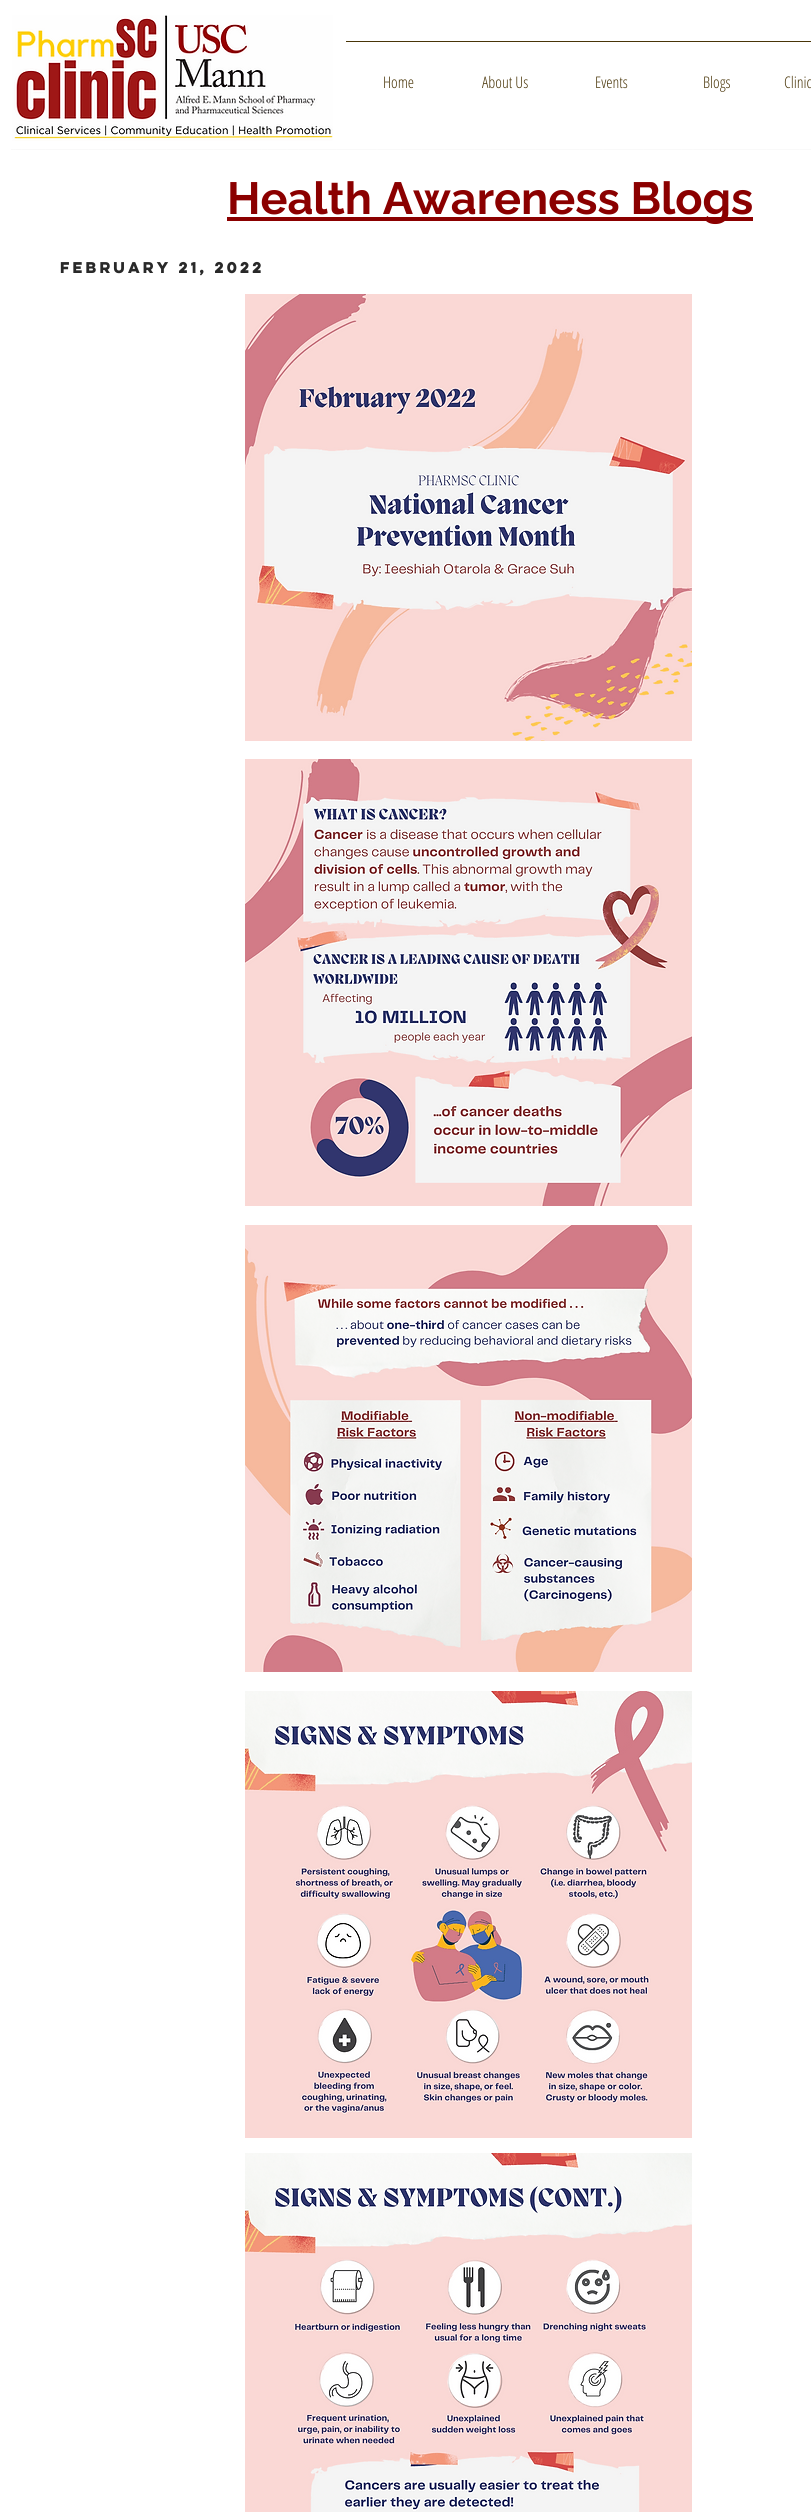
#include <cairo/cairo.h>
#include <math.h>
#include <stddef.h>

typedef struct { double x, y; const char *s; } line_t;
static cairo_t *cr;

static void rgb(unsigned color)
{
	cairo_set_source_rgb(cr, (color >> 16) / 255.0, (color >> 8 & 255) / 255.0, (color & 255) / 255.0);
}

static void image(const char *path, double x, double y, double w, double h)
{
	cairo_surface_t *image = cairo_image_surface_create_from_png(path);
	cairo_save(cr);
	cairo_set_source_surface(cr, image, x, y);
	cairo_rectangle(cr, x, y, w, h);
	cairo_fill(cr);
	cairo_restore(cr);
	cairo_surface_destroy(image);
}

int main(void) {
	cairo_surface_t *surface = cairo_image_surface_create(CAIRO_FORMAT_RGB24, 811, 2512);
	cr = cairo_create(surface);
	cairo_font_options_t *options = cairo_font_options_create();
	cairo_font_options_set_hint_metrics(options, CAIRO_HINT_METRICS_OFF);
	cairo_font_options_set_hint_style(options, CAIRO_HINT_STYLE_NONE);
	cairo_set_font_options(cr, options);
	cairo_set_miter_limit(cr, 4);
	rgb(0xffffff);
	cairo_paint(cr);
	image("img/1.png", 12, 15, 321, 126);
	rgb(0x493508);
	cairo_rectangle(cr, 346, 41, 465, 1);
	cairo_fill(cr);
	image("img/2.png", 11, 149, 24, 1);
	image("img/3.png", 35, 149, 776, 1);
	rgb(0x8b0000);
	cairo_rectangle(cr, 227, 217, 526, 4);
	cairo_fill(cr);
	image("img/4.png", 245, 294, 447, 447);
	image("img/5.png", 245, 759, 447, 447);
	image("img/6.png", 245, 1225, 447, 447);
	image("img/7.png", 245, 1691, 447, 447);
	image("img/8.png", 245, 2153, 447, 359);
	cairo_select_font_face(cr, "Open Sans Condensed Light", CAIRO_FONT_SLANT_NORMAL, CAIRO_FONT_WEIGHT_NORMAL);
	cairo_set_font_size(cr, 16);
	rgb(0x493508);
	{
		static const line_t items[] = {
			{383, 88, "Home"},
			{482, 88, "About Us"},
			{595, 88, "Events"},
			{703, 88, "Blogs"},
			{784, 88, "Clinic"},
		};
		for (size_t i = 0; i < sizeof items / sizeof *items; i++) {
			cairo_move_to(cr, items[i].x, items[i].y);
			cairo_show_text(cr, items[i].s);
		}
	}
	cairo_select_font_face(cr, "Raleway", CAIRO_FONT_SLANT_NORMAL, CAIRO_FONT_WEIGHT_BOLD);
	cairo_set_font_size(cr, 45);
	rgb(0x8b0000);
	cairo_move_to(cr, 227, 214);
	cairo_show_text(cr, "Health Awareness Blogs");
	cairo_select_font_face(cr, "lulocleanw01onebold", CAIRO_FONT_SLANT_NORMAL, CAIRO_FONT_WEIGHT_BOLD);
	cairo_set_font_size(cr, 14);
	rgb(0x292929);
	cairo_move_to(cr, 60, 273);
	cairo_show_text(cr, "february 21, 2022");
	cairo_surface_write_to_png(surface, "page.png");
	cairo_font_options_destroy(options);
	cairo_destroy(cr);
	cairo_surface_destroy(surface);
	return 0;
}
